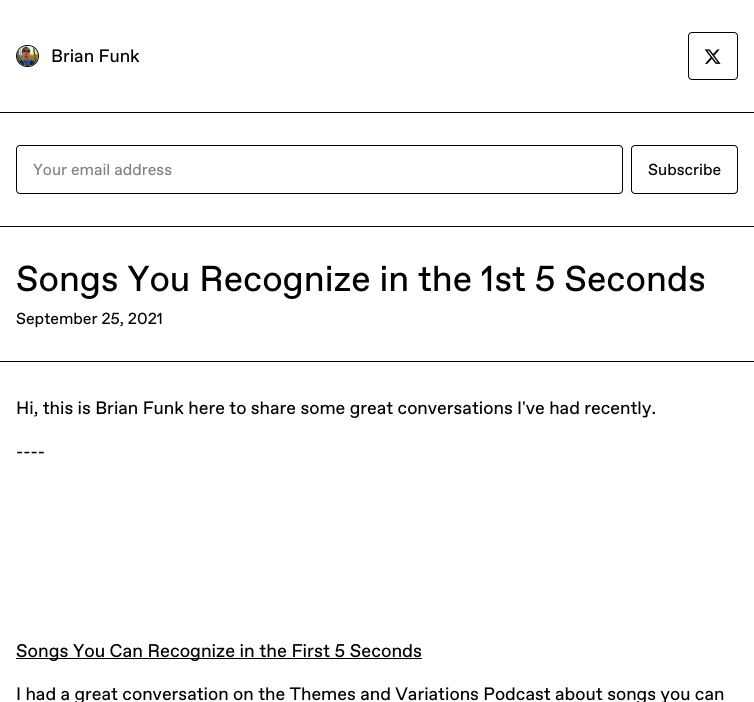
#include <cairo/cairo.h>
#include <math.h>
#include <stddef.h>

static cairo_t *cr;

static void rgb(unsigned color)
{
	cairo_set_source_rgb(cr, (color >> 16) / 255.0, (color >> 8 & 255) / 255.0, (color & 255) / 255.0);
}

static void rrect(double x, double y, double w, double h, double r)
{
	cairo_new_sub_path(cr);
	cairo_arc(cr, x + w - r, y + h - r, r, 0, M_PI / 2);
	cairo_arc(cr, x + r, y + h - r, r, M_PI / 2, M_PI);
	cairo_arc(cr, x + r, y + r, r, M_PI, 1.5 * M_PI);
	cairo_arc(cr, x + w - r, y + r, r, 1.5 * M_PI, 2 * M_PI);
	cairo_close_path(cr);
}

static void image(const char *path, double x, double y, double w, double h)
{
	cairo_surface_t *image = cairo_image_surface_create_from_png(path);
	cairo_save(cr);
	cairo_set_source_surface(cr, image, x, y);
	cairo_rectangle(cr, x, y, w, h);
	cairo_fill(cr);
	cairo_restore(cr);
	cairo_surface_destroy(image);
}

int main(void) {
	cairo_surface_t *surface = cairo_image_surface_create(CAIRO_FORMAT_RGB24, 754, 702);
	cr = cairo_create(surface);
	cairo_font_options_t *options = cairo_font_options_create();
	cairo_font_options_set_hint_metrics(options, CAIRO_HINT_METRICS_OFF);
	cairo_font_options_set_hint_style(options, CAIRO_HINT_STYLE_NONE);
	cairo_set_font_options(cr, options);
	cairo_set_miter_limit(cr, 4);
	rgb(0xffffff);
	cairo_paint(cr);
	rgb(0x000000);
	cairo_rectangle(cr, 0, 112, 754, 1);
	cairo_fill(cr);
	rrect(16.5, 45.5, 22, 21, 10.5);
	cairo_set_line_width(cr, 1);
	cairo_stroke(cr);
	image("img/1.png", 17, 46, 21, 20);
	rrect(688.5, 32.5, 49, 47, 3.5);
	cairo_stroke(cr);
	image("img/2.png", 704, 49, 17, 15);
	cairo_rectangle(cr, 0, 226, 754, 1);
	cairo_fill(cr);
	rrect(16.5, 145.5, 606, 48, 3.5);
	cairo_stroke(cr);
	rrect(631.5, 145.5, 106, 48, 3.5);
	cairo_stroke(cr);
	cairo_rectangle(cr, 0, 361, 754, 1);
	cairo_fill(cr);
	cairo_rectangle(cr, 16, 658, 406, 1);
	cairo_fill(cr);
	cairo_select_font_face(cr, "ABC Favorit", CAIRO_FONT_SLANT_NORMAL, CAIRO_FONT_WEIGHT_NORMAL);
	cairo_set_font_size(cr, 18);
	cairo_move_to(cr, 51, 62);
	cairo_show_text(cr, "Brian Funk");
	cairo_set_font_size(cr, 16);
	rgb(0x808080);
	cairo_move_to(cr, 33, 175);
	cairo_show_text(cr, "Your email address");
	rgb(0x000000);
	cairo_move_to(cr, 648, 175);
	cairo_show_text(cr, "Subscribe");
	cairo_set_font_size(cr, 36);
	cairo_move_to(cr, 16, 291);
	cairo_show_text(cr, "Songs You Recognize in the 1st 5 Seconds");
	cairo_set_font_size(cr, 16);
	cairo_move_to(cr, 16, 324);
	cairo_show_text(cr, "September 25, 2021");
	cairo_set_font_size(cr, 18);
	cairo_move_to(cr, 16, 414);
	cairo_show_text(cr, "Hi, this is Brian Funk here to share some great conversations I've had recently.");
	cairo_move_to(cr, 16, 458);
	cairo_show_text(cr, "----");
	cairo_set_font_size(cr, 18.4);
	cairo_move_to(cr, 16, 657);
	cairo_show_text(cr, "Songs You Can Recognize in the First 5 Seconds");
	cairo_set_font_size(cr, 18);
	cairo_move_to(cr, 16, 700);
	cairo_show_text(cr, "I had a great conversation on the Themes and Variations Podcast about songs you can");
	cairo_surface_write_to_png(surface, "page.png");
	cairo_font_options_destroy(options);
	cairo_destroy(cr);
	cairo_surface_destroy(surface);
	return 0;
}
